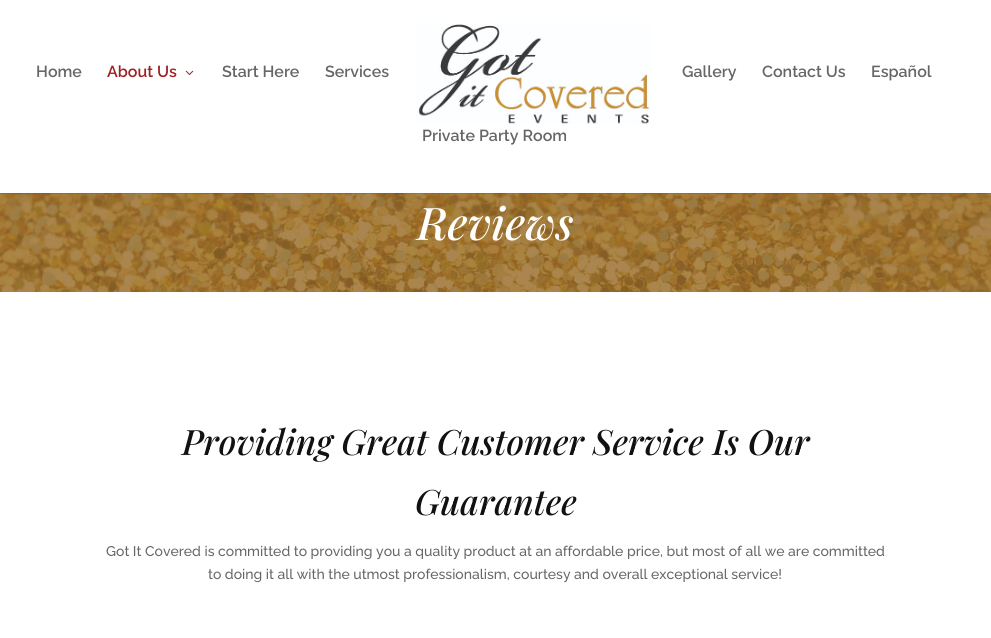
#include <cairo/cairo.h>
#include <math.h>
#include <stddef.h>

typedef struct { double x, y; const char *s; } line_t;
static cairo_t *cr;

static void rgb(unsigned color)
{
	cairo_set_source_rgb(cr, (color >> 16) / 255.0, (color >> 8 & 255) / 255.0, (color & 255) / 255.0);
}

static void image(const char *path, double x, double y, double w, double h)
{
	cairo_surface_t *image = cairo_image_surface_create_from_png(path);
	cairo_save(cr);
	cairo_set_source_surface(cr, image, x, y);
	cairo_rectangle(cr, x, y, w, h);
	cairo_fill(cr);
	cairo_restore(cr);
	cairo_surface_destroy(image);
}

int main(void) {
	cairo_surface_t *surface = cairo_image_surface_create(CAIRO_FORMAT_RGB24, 991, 638);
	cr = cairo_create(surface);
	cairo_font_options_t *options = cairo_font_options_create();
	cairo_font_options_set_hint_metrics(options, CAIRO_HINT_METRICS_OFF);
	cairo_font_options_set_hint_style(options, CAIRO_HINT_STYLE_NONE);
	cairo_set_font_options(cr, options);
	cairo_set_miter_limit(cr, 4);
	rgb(0xffffff);
	cairo_paint(cr);
	image("img/3.png", 0, 193, 991, 99);
	cairo_set_source_rgba(cr, 0, 0, 0, 0.1);
	cairo_rectangle(cr, 0, 193, 991, 1);
	cairo_fill(cr);
	image("img/1.png", 185, 70, 9, 5);
	image("img/2.png", 417, 24, 234, 100);
	cairo_select_font_face(cr, "Raleway SemiBold", CAIRO_FONT_SLANT_NORMAL, CAIRO_FONT_WEIGHT_NORMAL);
	cairo_set_font_size(cr, 16);
	rgb(0x666666);
	cairo_move_to(cr, 36, 77);
	cairo_show_text(cr, "Home");
	rgb(0x9f1f22);
	cairo_move_to(cr, 107, 77);
	cairo_show_text(cr, "About Us");
	rgb(0x666666);
	{
		static const line_t items[] = {
			{222, 77, "Start Here"},
			{325, 77, "Services"},
			{682, 77, "Gallery"},
			{762, 77, "Contact Us"},
			{871, 77, "Español"},
			{422, 141, "Private Party Room"},
		};
		for (size_t i = 0; i < sizeof items / sizeof *items; i++) {
			cairo_move_to(cr, items[i].x, items[i].y);
			cairo_show_text(cr, items[i].s);
		}
	}
	cairo_select_font_face(cr, "Playfair Display Medium", CAIRO_FONT_SLANT_ITALIC, CAIRO_FONT_WEIGHT_NORMAL);
	cairo_set_font_size(cr, 45);
	rgb(0xffffff);
	cairo_move_to(cr, 417, 240);
	cairo_show_text(cr, "Reviews");
	cairo_set_font_size(cr, 35);
	rgb(0x111111);
	cairo_move_to(cr, 182, 455);
	cairo_show_text(cr, "Providing Great Customer Service Is Our");
	cairo_move_to(cr, 415, 515);
	cairo_show_text(cr, "Guarantee");
	cairo_select_font_face(cr, "Raleway Medium", CAIRO_FONT_SLANT_NORMAL, CAIRO_FONT_WEIGHT_NORMAL);
	cairo_set_font_size(cr, 14);
	rgb(0x666666);
	cairo_move_to(cr, 106, 556);
	cairo_show_text(cr, "Got It Covered is committed to providing you a quality product at an affordable price, but most of all we are committed");
	cairo_move_to(cr, 208, 579);
	cairo_show_text(cr, "to doing it all with the utmost professionalism, courtesy and overall exceptional service!");
	cairo_surface_write_to_png(surface, "page.png");
	cairo_font_options_destroy(options);
	cairo_destroy(cr);
	cairo_surface_destroy(surface);
	return 0;
}
